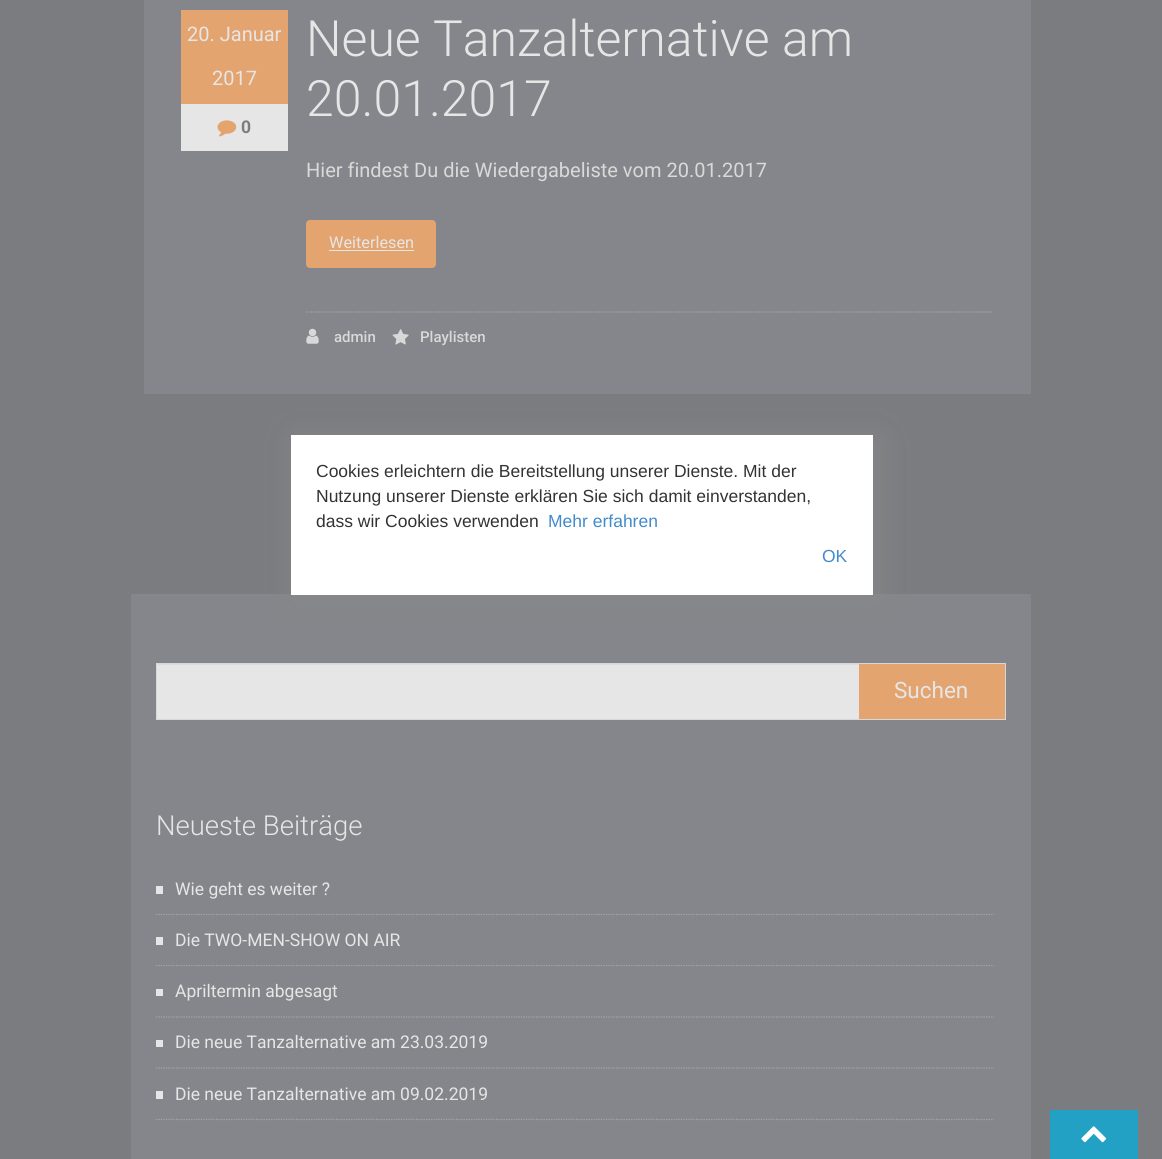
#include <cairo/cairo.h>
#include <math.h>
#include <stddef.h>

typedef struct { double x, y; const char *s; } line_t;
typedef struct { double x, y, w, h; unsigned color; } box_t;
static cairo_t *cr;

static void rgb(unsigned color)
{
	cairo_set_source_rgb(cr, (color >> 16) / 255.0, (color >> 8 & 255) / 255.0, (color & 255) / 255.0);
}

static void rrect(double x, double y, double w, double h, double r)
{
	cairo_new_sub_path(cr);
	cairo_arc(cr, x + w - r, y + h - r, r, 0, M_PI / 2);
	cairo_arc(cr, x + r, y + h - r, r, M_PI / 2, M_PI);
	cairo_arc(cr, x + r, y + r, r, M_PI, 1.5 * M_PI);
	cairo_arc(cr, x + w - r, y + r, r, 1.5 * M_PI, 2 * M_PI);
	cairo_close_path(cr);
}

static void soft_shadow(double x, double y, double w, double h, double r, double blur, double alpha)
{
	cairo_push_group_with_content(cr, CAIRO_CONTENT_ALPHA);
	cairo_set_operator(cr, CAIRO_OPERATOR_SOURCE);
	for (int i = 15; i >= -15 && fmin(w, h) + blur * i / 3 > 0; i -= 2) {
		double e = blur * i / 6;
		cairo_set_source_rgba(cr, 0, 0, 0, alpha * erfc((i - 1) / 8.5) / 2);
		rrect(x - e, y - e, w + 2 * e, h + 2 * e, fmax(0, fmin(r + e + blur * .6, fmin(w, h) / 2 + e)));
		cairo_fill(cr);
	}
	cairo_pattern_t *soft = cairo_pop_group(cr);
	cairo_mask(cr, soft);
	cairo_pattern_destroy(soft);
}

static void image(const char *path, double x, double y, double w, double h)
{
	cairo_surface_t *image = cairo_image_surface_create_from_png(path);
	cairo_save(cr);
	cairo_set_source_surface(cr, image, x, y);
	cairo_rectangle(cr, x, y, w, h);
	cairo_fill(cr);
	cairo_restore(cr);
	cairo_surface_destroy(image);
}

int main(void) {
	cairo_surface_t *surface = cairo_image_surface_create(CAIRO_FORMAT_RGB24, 1162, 1159);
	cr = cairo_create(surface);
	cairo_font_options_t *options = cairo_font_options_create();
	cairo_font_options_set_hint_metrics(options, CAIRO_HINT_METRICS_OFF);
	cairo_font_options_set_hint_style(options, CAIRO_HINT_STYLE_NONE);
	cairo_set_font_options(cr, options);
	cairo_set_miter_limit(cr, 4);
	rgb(0x7b7c80);
	cairo_paint(cr);
	{
		static const box_t items[] = {
			{144, 0, 887, 394, 0x84868b},
			{181, 104, 107, 47, 0xe6e6e6},
			{181, 10, 107, 94, 0xe4a46f},
		};
		for (size_t i = 0; i < sizeof items / sizeof *items; i++) {
			rgb(items[i].color);
			cairo_rectangle(cr, items[i].x, items[i].y, items[i].w, items[i].h);
			cairo_fill(cr);
		}
	}
	image("img/1.png", 217, 120, 20, 17);
	rrect(306, 220, 130, 48, 4);
	cairo_fill(cr);
	rgb(0xe6e6e6);
	cairo_rectangle(cr, 329, 250, 85, 1);
	cairo_fill(cr);
	cairo_new_path(cr);
	cairo_move_to(cr, 306, 312);
	cairo_line_to(cr, 992.5, 312);
	rgb(0xa4a6ac);
	cairo_set_line_width(cr, 1.2);
	cairo_set_dash(cr, (double[]){1.25, 1.25}, 2, 0);
	cairo_stroke(cr);
	image("img/2.png", 306, 328, 13, 16);
	image("img/3.png", 392, 329, 17, 16);
	{
		static const box_t items[] = {
			{131, 594, 900, 565, 0x84868b},
			{157, 664, 702, 55, 0xe6e6e6},
			{158, 664, 701, 1, 0xdcdcdc},
		};
		for (size_t i = 0; i < sizeof items / sizeof *items; i++) {
			rgb(items[i].color);
			cairo_rectangle(cr, items[i].x, items[i].y, items[i].w, items[i].h);
			cairo_fill(cr);
		}
	}
	cairo_rectangle(cr, 156.5, 663.5, 849, 56);
	rgb(0xd6d8d9);
	cairo_set_line_width(cr, 1);
	cairo_set_dash(cr, NULL, 0, 0);
	cairo_stroke(cr);
	rgb(0xe4a46f);
	cairo_rectangle(cr, 859, 664, 146, 55);
	cairo_fill(cr);
	cairo_new_path(cr);
	cairo_move_to(cr, 156, 914.5);
	cairo_line_to(cr, 994, 914.5);
	rgb(0xa4a6ac);
	cairo_set_line_width(cr, 1.2);
	cairo_set_dash(cr, (double[]){1.25, 1.25}, 2, 0);
	cairo_stroke(cr);
	rgb(0xe6e6e6);
	cairo_rectangle(cr, 156, 886, 7, 8);
	cairo_fill(cr);
	cairo_new_path(cr);
	cairo_move_to(cr, 156, 965.5);
	cairo_line_to(cr, 994, 965.5);
	rgb(0xa4a6ac);
	cairo_stroke(cr);
	rgb(0xe6e6e6);
	cairo_rectangle(cr, 156, 937, 7, 8);
	cairo_fill(cr);
	cairo_new_path(cr);
	cairo_move_to(cr, 156, 1017);
	cairo_line_to(cr, 994, 1017);
	rgb(0xa4a6ac);
	cairo_stroke(cr);
	rgb(0xe6e6e6);
	cairo_rectangle(cr, 156, 989, 7, 7);
	cairo_fill(cr);
	cairo_new_path(cr);
	cairo_move_to(cr, 156, 1068);
	cairo_line_to(cr, 994, 1068);
	rgb(0xa4a6ac);
	cairo_stroke(cr);
	rgb(0xe6e6e6);
	cairo_rectangle(cr, 156, 1040, 7, 7);
	cairo_fill(cr);
	cairo_new_path(cr);
	cairo_move_to(cr, 156, 1119.5);
	cairo_line_to(cr, 994, 1119.5);
	rgb(0xa4a6ac);
	cairo_stroke(cr);
	rgb(0xe6e6e6);
	cairo_rectangle(cr, 156, 1091, 7, 8);
	cairo_fill(cr);
	rgb(0x888888);
	soft_shadow(296, 440, 582, 160, 0, 15.5, 1);
	rgb(0xffffff);
	cairo_rectangle(cr, 291, 435, 582, 160);
	cairo_fill(cr);
	rgb(0x22a1c4);
	cairo_rectangle(cr, 1050, 1110, 88, 49);
	cairo_fill(cr);
	image("img/4.png", 1081, 1126, 26, 17);
	cairo_select_font_face(cr, "Roboto", CAIRO_FONT_SLANT_NORMAL, CAIRO_FONT_WEIGHT_NORMAL);
	cairo_set_font_size(cr, 20);
	rgb(0xe6e6e6);
	cairo_move_to(cr, 187, 41);
	cairo_show_text(cr, "20. Januar");
	cairo_move_to(cr, 212, 85);
	cairo_show_text(cr, "2017");
	cairo_select_font_face(cr, "Roboto", CAIRO_FONT_SLANT_NORMAL, CAIRO_FONT_WEIGHT_BOLD);
	cairo_set_font_size(cr, 17.5);
	rgb(0x7b7c80);
	cairo_move_to(cr, 241, 133);
	cairo_show_text(cr, "0");
	cairo_select_font_face(cr, "Roboto Light", CAIRO_FONT_SLANT_NORMAL, CAIRO_FONT_WEIGHT_NORMAL);
	cairo_set_font_size(cr, 50);
	rgb(0xe6e6e6);
	cairo_move_to(cr, 306, 56);
	cairo_show_text(cr, "Neue Tanzalternative am");
	cairo_move_to(cr, 306, 116);
	cairo_show_text(cr, "20.01.2017");
	cairo_select_font_face(cr, "Roboto", CAIRO_FONT_SLANT_NORMAL, CAIRO_FONT_WEIGHT_NORMAL);
	cairo_set_font_size(cr, 20);
	rgb(0xd9d9d9);
	cairo_move_to(cr, 306, 177);
	cairo_show_text(cr, "Hier findest Du die Wiedergabeliste vom 20.01.2017");
	cairo_set_font_size(cr, 16.25);
	rgb(0xe6e6e6);
	cairo_move_to(cr, 329, 248);
	cairo_show_text(cr, "Weiterlesen");
	cairo_select_font_face(cr, "Roboto Medium", CAIRO_FONT_SLANT_NORMAL, CAIRO_FONT_WEIGHT_NORMAL);
	cairo_set_font_size(cr, 15);
	rgb(0xd9d9d9);
	cairo_move_to(cr, 334, 342);
	cairo_show_text(cr, "admin");
	cairo_move_to(cr, 420, 342);
	cairo_show_text(cr, "Playlisten");
	cairo_select_font_face(cr, "Roboto", CAIRO_FONT_SLANT_NORMAL, CAIRO_FONT_WEIGHT_NORMAL);
	cairo_set_font_size(cr, 22.5);
	rgb(0xe6e6e6);
	cairo_move_to(cr, 894, 698);
	cairo_show_text(cr, "Suchen");
	cairo_select_font_face(cr, "Roboto Light", CAIRO_FONT_SLANT_NORMAL, CAIRO_FONT_WEIGHT_NORMAL);
	cairo_set_font_size(cr, 27.5);
	cairo_move_to(cr, 156, 835);
	cairo_show_text(cr, "Neueste Beiträge");
	cairo_select_font_face(cr, "Roboto", CAIRO_FONT_SLANT_NORMAL, CAIRO_FONT_WEIGHT_NORMAL);
	cairo_set_font_size(cr, 17.5);
	{
		static const line_t items[] = {
			{175, 895, "Wie geht es weiter ?"},
			{175, 946, "Die TWO-MEN-SHOW ON AIR"},
			{175, 997, "Apriltermin abgesagt"},
			{175, 1048, "Die neue Tanzalternative am 23.03.2019"},
			{175, 1100, "Die neue Tanzalternative am 09.02.2019"},
		};
		for (size_t i = 0; i < sizeof items / sizeof *items; i++) {
			cairo_move_to(cr, items[i].x, items[i].y);
			cairo_show_text(cr, items[i].s);
		}
	}
	cairo_select_font_face(cr, "Liberation Sans", CAIRO_FONT_SLANT_NORMAL, CAIRO_FONT_WEIGHT_NORMAL);
	rgb(0x333333);
	{
		static const line_t items[] = {
			{316, 477, "Cookies erleichtern die Bereitstellung unserer Dienste. Mit der"},
			{316, 502, "Nutzung unserer Dienste erklären Sie sich damit einverstanden,"},
			{316, 527, "dass wir Cookies verwenden"},
		};
		for (size_t i = 0; i < sizeof items / sizeof *items; i++) {
			cairo_move_to(cr, items[i].x, items[i].y);
			cairo_show_text(cr, items[i].s);
		}
	}
	rgb(0x428bca);
	cairo_move_to(cr, 548, 527);
	cairo_show_text(cr, "Mehr erfahren");
	cairo_move_to(cr, 822, 562);
	cairo_show_text(cr, "OK");
	cairo_surface_write_to_png(surface, "page.png");
	cairo_font_options_destroy(options);
	cairo_destroy(cr);
	cairo_surface_destroy(surface);
	return 0;
}
